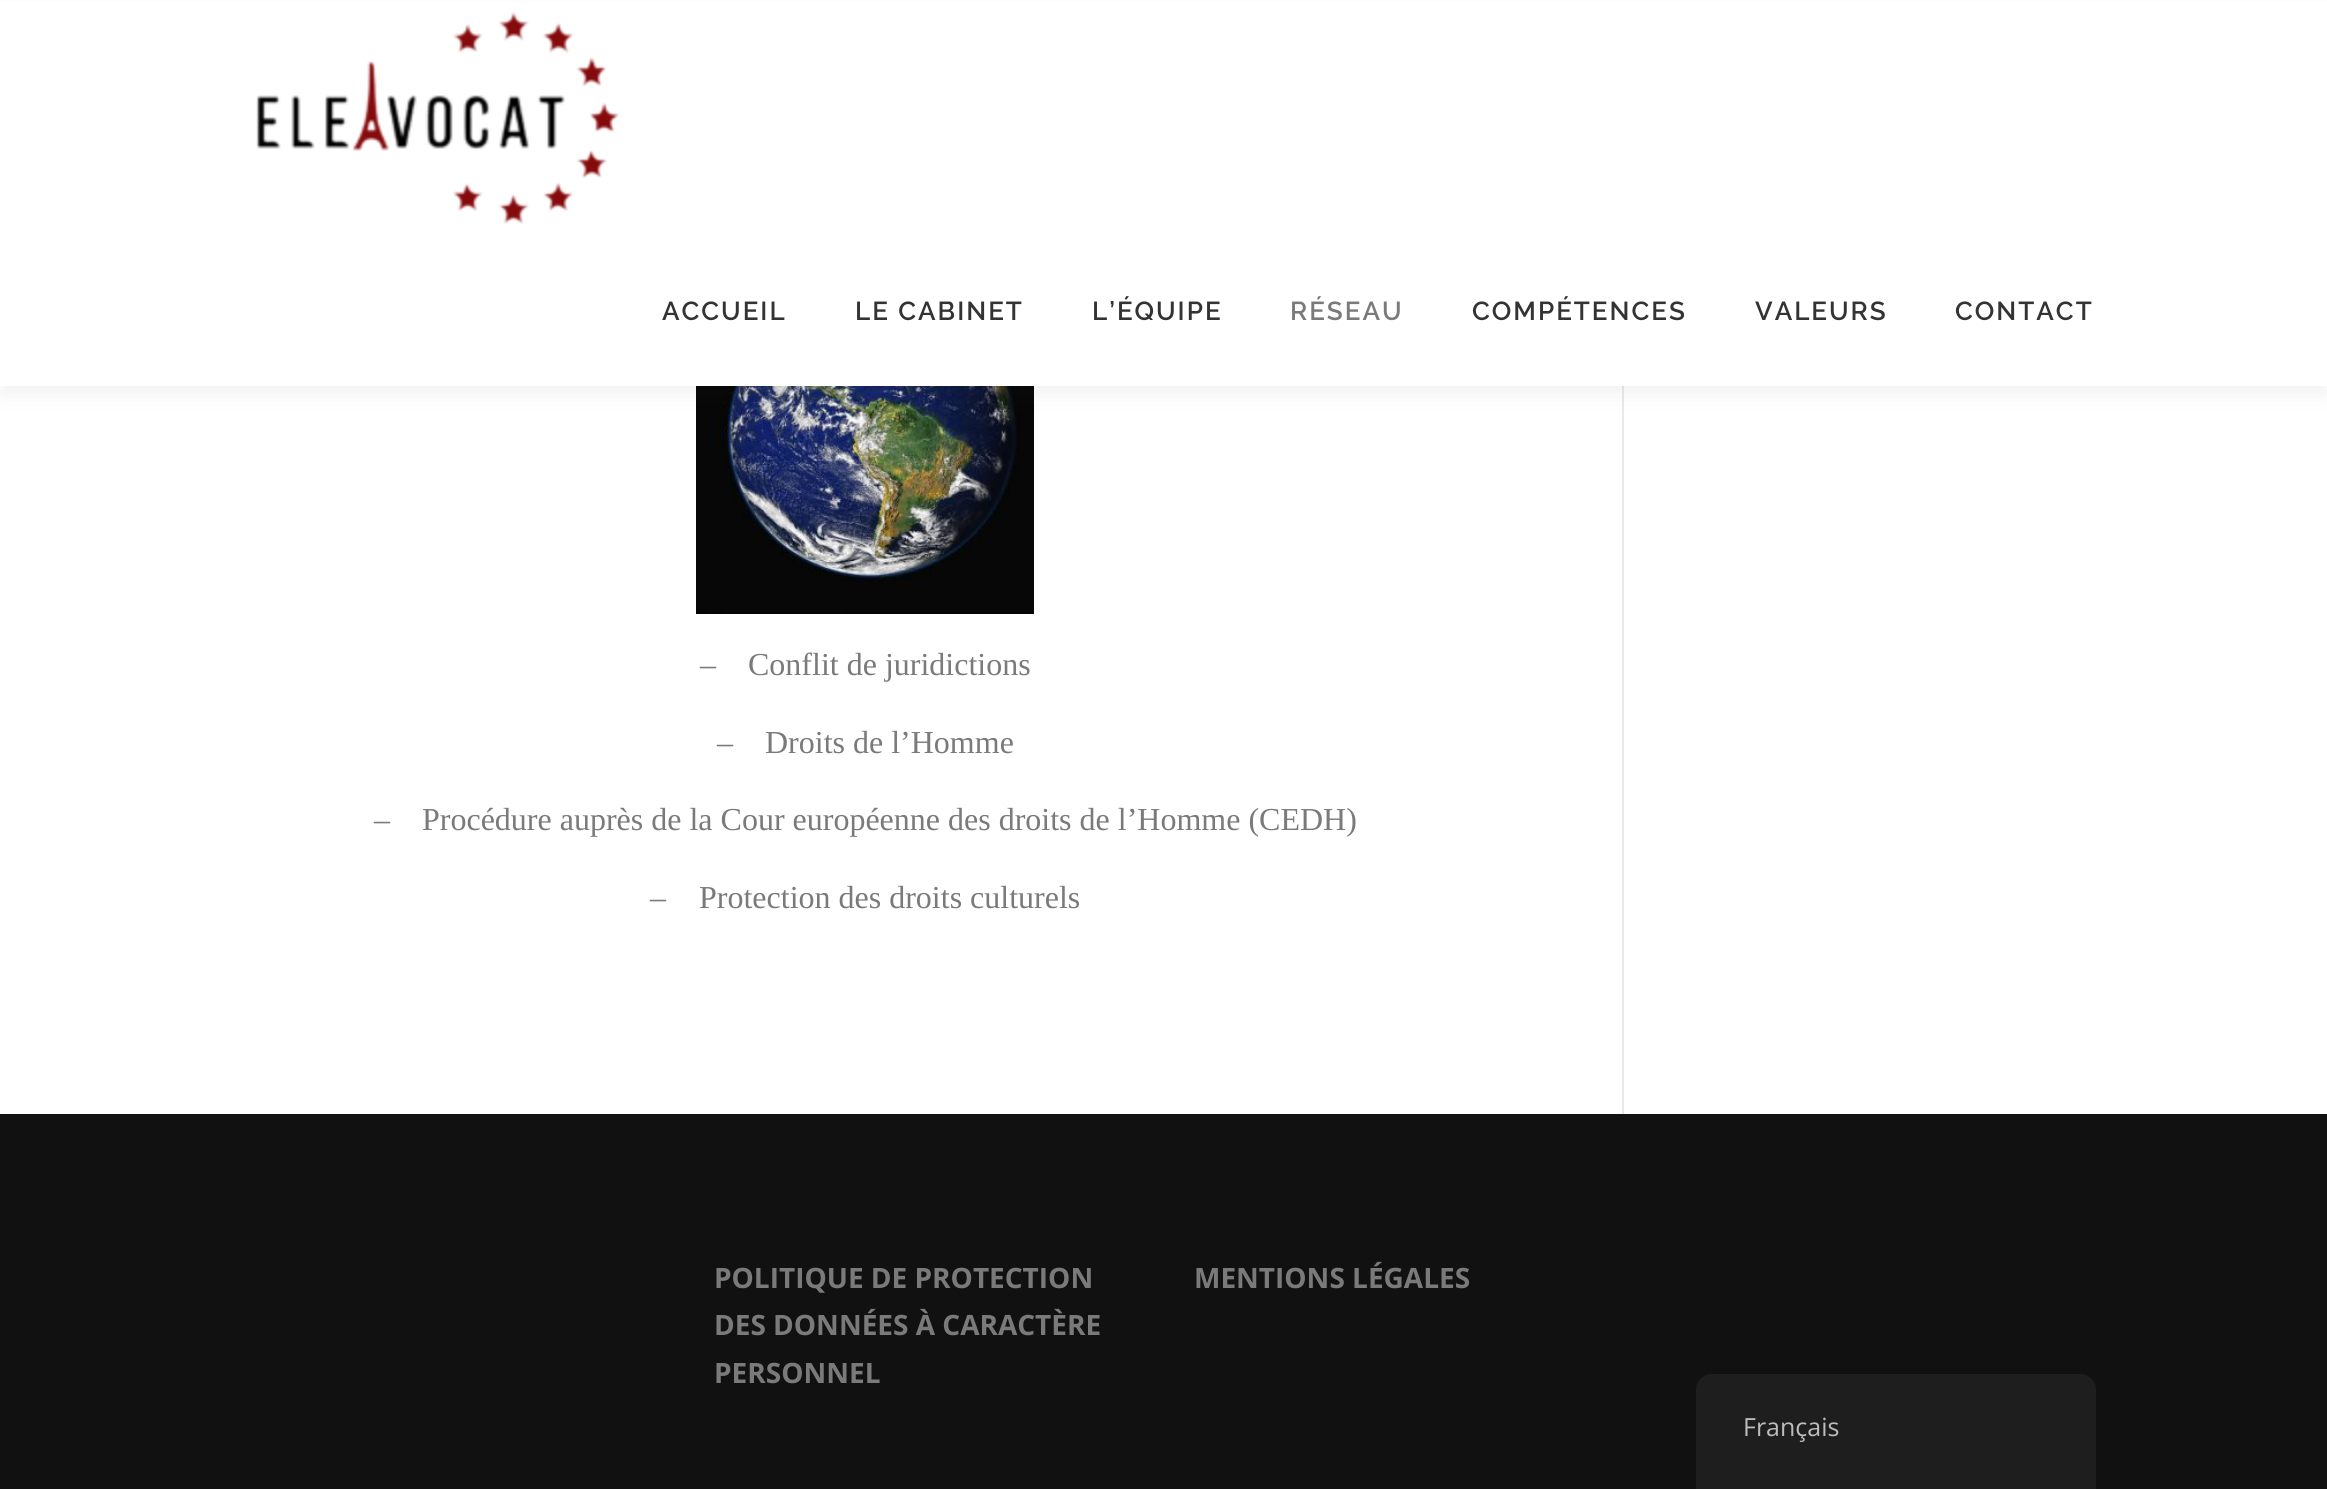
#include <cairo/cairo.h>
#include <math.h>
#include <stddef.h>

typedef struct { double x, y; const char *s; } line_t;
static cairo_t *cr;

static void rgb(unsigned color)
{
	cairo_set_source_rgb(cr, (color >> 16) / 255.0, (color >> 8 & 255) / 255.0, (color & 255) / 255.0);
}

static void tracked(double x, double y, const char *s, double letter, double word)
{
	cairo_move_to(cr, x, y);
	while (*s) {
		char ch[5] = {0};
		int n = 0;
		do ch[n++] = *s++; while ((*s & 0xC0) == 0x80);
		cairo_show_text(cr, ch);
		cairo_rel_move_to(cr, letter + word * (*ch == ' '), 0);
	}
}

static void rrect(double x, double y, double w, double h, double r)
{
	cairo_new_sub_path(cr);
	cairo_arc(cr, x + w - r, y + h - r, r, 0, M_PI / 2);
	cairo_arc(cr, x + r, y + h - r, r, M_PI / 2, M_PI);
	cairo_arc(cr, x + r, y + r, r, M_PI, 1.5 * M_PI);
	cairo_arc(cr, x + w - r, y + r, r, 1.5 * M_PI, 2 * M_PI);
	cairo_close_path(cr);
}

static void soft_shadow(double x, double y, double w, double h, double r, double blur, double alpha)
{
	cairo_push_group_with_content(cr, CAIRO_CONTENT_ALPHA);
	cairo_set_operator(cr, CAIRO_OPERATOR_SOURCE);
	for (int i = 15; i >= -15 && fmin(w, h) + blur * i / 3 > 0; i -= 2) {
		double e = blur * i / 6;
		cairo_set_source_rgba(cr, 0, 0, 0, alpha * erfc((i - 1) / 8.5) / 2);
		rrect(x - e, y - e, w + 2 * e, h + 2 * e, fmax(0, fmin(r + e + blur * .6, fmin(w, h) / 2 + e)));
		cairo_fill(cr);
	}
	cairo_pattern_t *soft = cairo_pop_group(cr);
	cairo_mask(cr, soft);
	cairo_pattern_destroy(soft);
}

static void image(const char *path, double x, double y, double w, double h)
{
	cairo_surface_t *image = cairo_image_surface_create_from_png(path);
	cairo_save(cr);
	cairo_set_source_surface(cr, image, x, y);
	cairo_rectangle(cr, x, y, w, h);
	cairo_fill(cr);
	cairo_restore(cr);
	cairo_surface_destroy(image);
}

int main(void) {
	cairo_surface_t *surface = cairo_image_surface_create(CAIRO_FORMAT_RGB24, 2327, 1489);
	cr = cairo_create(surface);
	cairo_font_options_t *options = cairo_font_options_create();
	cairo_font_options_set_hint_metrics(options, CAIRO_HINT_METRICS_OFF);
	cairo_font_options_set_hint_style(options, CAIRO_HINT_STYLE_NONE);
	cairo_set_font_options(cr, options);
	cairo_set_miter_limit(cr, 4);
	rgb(0xffffff);
	cairo_paint(cr);
	rgb(0xe9e9e9);
	cairo_rectangle(cr, 1622, 386, 2, 728);
	cairo_fill(cr);
	image("img/2.png", 696, 386, 338, 228);
	rgb(0x323232);
	soft_shadow(0, 10, 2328, 386, 0, 10, 0.06);
	rgb(0xffffff);
	cairo_rectangle(cr, 0, 2, 2327, 384);
	cairo_fill(cr);
	image("img/1.png", 256, 12, 363, 212);
	rgb(0x111111);
	cairo_rectangle(cr, 0, 1114, 2327, 375);
	cairo_fill(cr);
	rgb(0x1e1e1e);
	cairo_new_path(cr);
	cairo_move_to(cr, 1712, 1374);
	cairo_line_to(cr, 2080, 1374);
	cairo_curve_to(cr, 2089, 1374, 2096, 1381, 2096, 1390);
	cairo_line_to(cr, 2096, 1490);
	cairo_line_to(cr, 1696, 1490);
	cairo_line_to(cr, 1696, 1390);
	cairo_curve_to(cr, 1696, 1381, 1703, 1374, 1712, 1374);
	cairo_close_path(cr);
	cairo_fill(cr);
	cairo_select_font_face(cr, "Raleway SemiBold", CAIRO_FONT_SLANT_NORMAL, CAIRO_FONT_WEIGHT_NORMAL);
	cairo_set_font_size(cr, 26);
	rgb(0x333333);
	{
		static const line_t items[] = {
			{662, 320, "ACCUEIL"},
			{855, 320, "LE CABINET"},
			{1092, 320, "L’ÉQUIPE"},
		};
		for (size_t i = 0; i < sizeof items / sizeof *items; i++) {
			tracked(items[i].x, items[i].y, items[i].s, 2, 0);
		}
	}
	rgb(0x7a7a7a);
	tracked(1290, 320, "RÉSEAU", 2, 0);
	rgb(0x333333);
	{
		static const line_t items[] = {
			{1472, 320, "COMPÉTENCES"},
			{1755, 320, "VALEURS"},
			{1955, 320, "CONTACT"},
		};
		for (size_t i = 0; i < sizeof items / sizeof *items; i++) {
			tracked(items[i].x, items[i].y, items[i].s, 2, 0);
		}
	}
	cairo_select_font_face(cr, "Liberation Serif", CAIRO_FONT_SLANT_NORMAL, CAIRO_FONT_WEIGHT_NORMAL);
	cairo_set_font_size(cr, 32);
	rgb(0x7a7a7a);
	{
		static const line_t items[] = {
			{700, 675, "–"},
			{748, 675, "Conflit de juridictions"},
			{717, 753, "–"},
			{765, 753, "Droits de l’Homme"},
			{374, 830, "–"},
			{422, 830, "Procédure auprès de la Cour européenne des droits de l’Homme (CEDH)"},
			{650, 908, "–"},
			{699, 908, "Protection des droits culturels"},
		};
		for (size_t i = 0; i < sizeof items / sizeof *items; i++) {
			cairo_move_to(cr, items[i].x, items[i].y);
			cairo_show_text(cr, items[i].s);
		}
	}
	cairo_select_font_face(cr, "Open Sans", CAIRO_FONT_SLANT_NORMAL, CAIRO_FONT_WEIGHT_BOLD);
	cairo_set_font_size(cr, 28);
	{
		static const line_t items[] = {
			{714, 1288, "POLITIQUE DE PROTECTION"},
			{714, 1335, "DES DONNÉES À CARACTÈRE"},
			{714, 1383, "PERSONNEL"},
			{1194, 1288, "MENTIONS LÉGALES"},
		};
		for (size_t i = 0; i < sizeof items / sizeof *items; i++) {
			cairo_move_to(cr, items[i].x, items[i].y);
			cairo_show_text(cr, items[i].s);
		}
	}
	cairo_select_font_face(cr, "Open Sans", CAIRO_FONT_SLANT_NORMAL, CAIRO_FONT_WEIGHT_NORMAL);
	cairo_set_font_size(cr, 25);
	rgb(0xbdbdbd);
	cairo_move_to(cr, 1743, 1436);
	cairo_show_text(cr, "Français");
	cairo_surface_write_to_png(surface, "page.png");
	cairo_font_options_destroy(options);
	cairo_destroy(cr);
	cairo_surface_destroy(surface);
	return 0;
}
